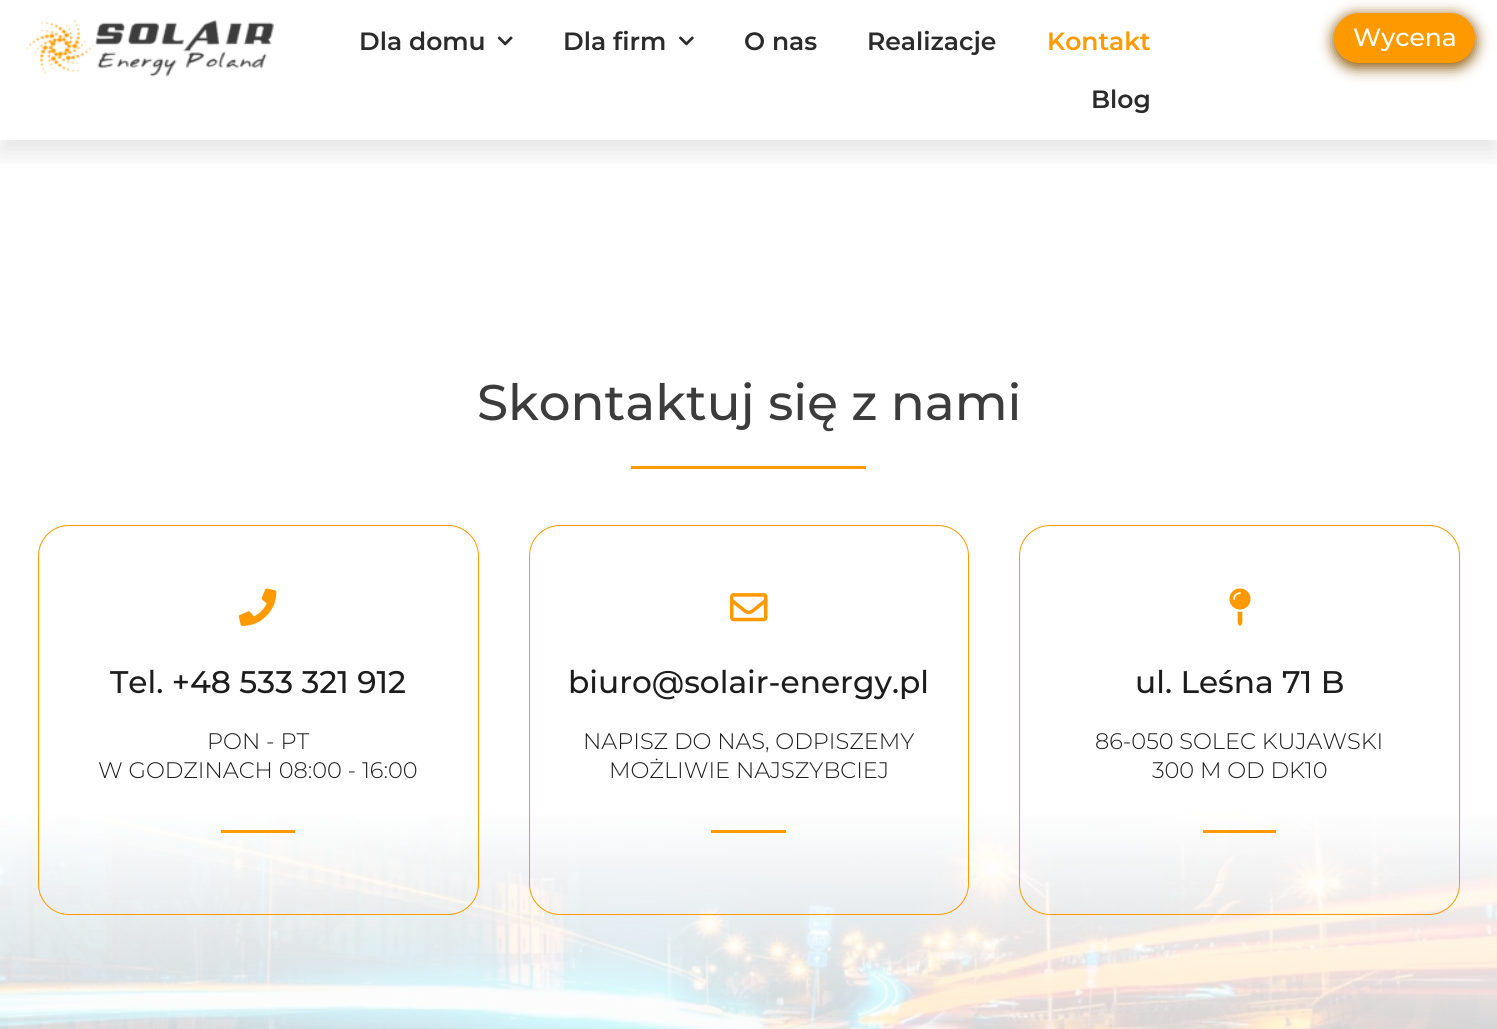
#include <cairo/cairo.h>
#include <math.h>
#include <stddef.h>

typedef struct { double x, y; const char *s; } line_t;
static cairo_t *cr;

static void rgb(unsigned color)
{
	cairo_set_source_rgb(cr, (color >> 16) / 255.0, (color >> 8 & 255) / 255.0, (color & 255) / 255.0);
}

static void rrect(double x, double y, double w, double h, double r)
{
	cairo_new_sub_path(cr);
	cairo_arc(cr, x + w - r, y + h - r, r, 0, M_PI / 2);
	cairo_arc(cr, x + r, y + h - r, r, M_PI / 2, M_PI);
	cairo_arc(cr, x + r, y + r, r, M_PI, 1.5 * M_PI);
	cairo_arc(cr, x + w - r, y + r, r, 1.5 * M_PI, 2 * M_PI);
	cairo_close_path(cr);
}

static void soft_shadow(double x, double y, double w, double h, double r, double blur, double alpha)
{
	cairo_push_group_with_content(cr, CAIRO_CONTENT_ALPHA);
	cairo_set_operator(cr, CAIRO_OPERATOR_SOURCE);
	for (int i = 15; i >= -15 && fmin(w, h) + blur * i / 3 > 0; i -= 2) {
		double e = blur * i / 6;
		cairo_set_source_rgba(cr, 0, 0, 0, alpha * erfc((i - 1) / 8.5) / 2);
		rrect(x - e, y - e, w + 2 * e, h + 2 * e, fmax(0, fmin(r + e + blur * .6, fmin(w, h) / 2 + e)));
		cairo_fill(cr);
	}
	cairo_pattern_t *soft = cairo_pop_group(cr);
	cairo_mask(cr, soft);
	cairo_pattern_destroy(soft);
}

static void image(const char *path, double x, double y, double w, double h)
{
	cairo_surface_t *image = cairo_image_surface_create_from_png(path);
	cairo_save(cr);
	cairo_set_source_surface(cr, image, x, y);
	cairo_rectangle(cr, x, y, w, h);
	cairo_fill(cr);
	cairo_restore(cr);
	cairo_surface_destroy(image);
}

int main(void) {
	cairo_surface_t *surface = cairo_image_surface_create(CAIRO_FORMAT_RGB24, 1497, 1029);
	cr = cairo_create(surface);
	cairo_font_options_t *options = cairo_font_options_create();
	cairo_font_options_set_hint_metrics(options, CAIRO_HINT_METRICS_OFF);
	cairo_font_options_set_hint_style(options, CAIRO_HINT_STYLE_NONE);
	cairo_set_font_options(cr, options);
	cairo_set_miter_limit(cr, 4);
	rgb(0xffffff);
	cairo_paint(cr);
	image("img/4.png", 0, 140, 1497, 889);
	cairo_save(cr);
	cairo_rectangle(cr, 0, 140, 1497, 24);
	cairo_clip(cr);
	rgb(0x000000);
	soft_shadow(0, 13, 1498, 140, 0, 12.5, 0.1);
	cairo_restore(cr);
	image("img/1.png", 26, 20, 248, 57);
	image("img/2.png", 497, 36, 16, 10);
	image("img/3.png", 679, 36, 15, 10);
	rgb(0x8a5402);
	soft_shadow(1333, 15, 143, 53, 26.5, 7, 0.97);
	rgb(0xff9900);
	rrect(1334, 13, 141, 50, 25);
	cairo_fill(cr);
	cairo_rectangle(cr, 631, 466, 235, 3);
	cairo_fill(cr);
	rrect(38.5, 525.5, 440, 389, 30.5);
	cairo_set_line_width(cr, 1);
	cairo_stroke(cr);
	image("img/5.png", 238, 588, 39, 38);
	cairo_rectangle(cr, 221, 830, 74, 3);
	cairo_fill(cr);
	rrect(529.5, 525.5, 439, 389, 30.5);
	cairo_stroke(cr);
	image("img/6.png", 730, 593, 38, 29);
	cairo_rectangle(cr, 711, 830, 75, 3);
	cairo_fill(cr);
	rrect(1019.5, 525.5, 440, 389, 30.5);
	cairo_stroke(cr);
	image("img/7.png", 1229, 588, 22, 38);
	cairo_rectangle(cr, 1203, 830, 73, 3);
	cairo_fill(cr);
	cairo_select_font_face(cr, "Montserrat SemiBold", CAIRO_FONT_SLANT_NORMAL, CAIRO_FONT_WEIGHT_NORMAL);
	cairo_set_font_size(cr, 25);
	rgb(0x2b2b2b);
	{
		static const line_t items[] = {
			{359, 50, "Dla domu"},
			{563, 50, "Dla firm"},
			{744, 50, "O nas"},
			{867, 50, "Realizacje"},
		};
		for (size_t i = 0; i < sizeof items / sizeof *items; i++) {
			cairo_move_to(cr, items[i].x, items[i].y);
			cairo_show_text(cr, items[i].s);
		}
	}
	rgb(0xff9900);
	cairo_move_to(cr, 1047, 50);
	cairo_show_text(cr, "Kontakt");
	rgb(0x2b2b2b);
	cairo_move_to(cr, 1091, 108);
	cairo_show_text(cr, "Blog");
	cairo_select_font_face(cr, "Montserrat Medium", CAIRO_FONT_SLANT_NORMAL, CAIRO_FONT_WEIGHT_NORMAL);
	rgb(0xffffff);
	cairo_move_to(cr, 1353, 46);
	cairo_show_text(cr, "Wycena");
	cairo_set_font_size(cr, 50);
	rgb(0x3c3c3c);
	cairo_move_to(cr, 477, 420);
	cairo_show_text(cr, "Skontaktuj się z nami");
	cairo_set_font_size(cr, 31.25);
	rgb(0x1d1d1d);
	cairo_move_to(cr, 110, 693);
	cairo_show_text(cr, "Tel. +48 533 321 912");
	cairo_select_font_face(cr, "Montserrat Light", CAIRO_FONT_SLANT_NORMAL, CAIRO_FONT_WEIGHT_NORMAL);
	cairo_set_font_size(cr, 22.5);
	cairo_move_to(cr, 207, 749);
	cairo_show_text(cr, "PON - PT");
	cairo_move_to(cr, 98, 778);
	cairo_show_text(cr, "W GODZINACH 08:00 - 16:00");
	cairo_select_font_face(cr, "Montserrat Medium", CAIRO_FONT_SLANT_NORMAL, CAIRO_FONT_WEIGHT_NORMAL);
	cairo_set_font_size(cr, 31.25);
	cairo_move_to(cr, 568, 693);
	cairo_show_text(cr, "biuro@solair-energy.pl");
	cairo_select_font_face(cr, "Montserrat Light", CAIRO_FONT_SLANT_NORMAL, CAIRO_FONT_WEIGHT_NORMAL);
	cairo_set_font_size(cr, 22.5);
	cairo_move_to(cr, 583, 749);
	cairo_show_text(cr, "NAPISZ DO NAS, ODPISZEMY");
	cairo_move_to(cr, 609, 778);
	cairo_show_text(cr, "MOŻLIWIE NAJSZYBCIEJ");
	cairo_select_font_face(cr, "Montserrat Medium", CAIRO_FONT_SLANT_NORMAL, CAIRO_FONT_WEIGHT_NORMAL);
	cairo_set_font_size(cr, 31.25);
	cairo_move_to(cr, 1135, 693);
	cairo_show_text(cr, "ul. Leśna 71 B");
	cairo_select_font_face(cr, "Montserrat Light", CAIRO_FONT_SLANT_NORMAL, CAIRO_FONT_WEIGHT_NORMAL);
	cairo_set_font_size(cr, 22.5);
	cairo_move_to(cr, 1095, 749);
	cairo_show_text(cr, "86-050 SOLEC KUJAWSKI");
	cairo_move_to(cr, 1152, 778);
	cairo_show_text(cr, "300 M OD DK10");
	cairo_surface_write_to_png(surface, "page.png");
	cairo_font_options_destroy(options);
	cairo_destroy(cr);
	cairo_surface_destroy(surface);
	return 0;
}
